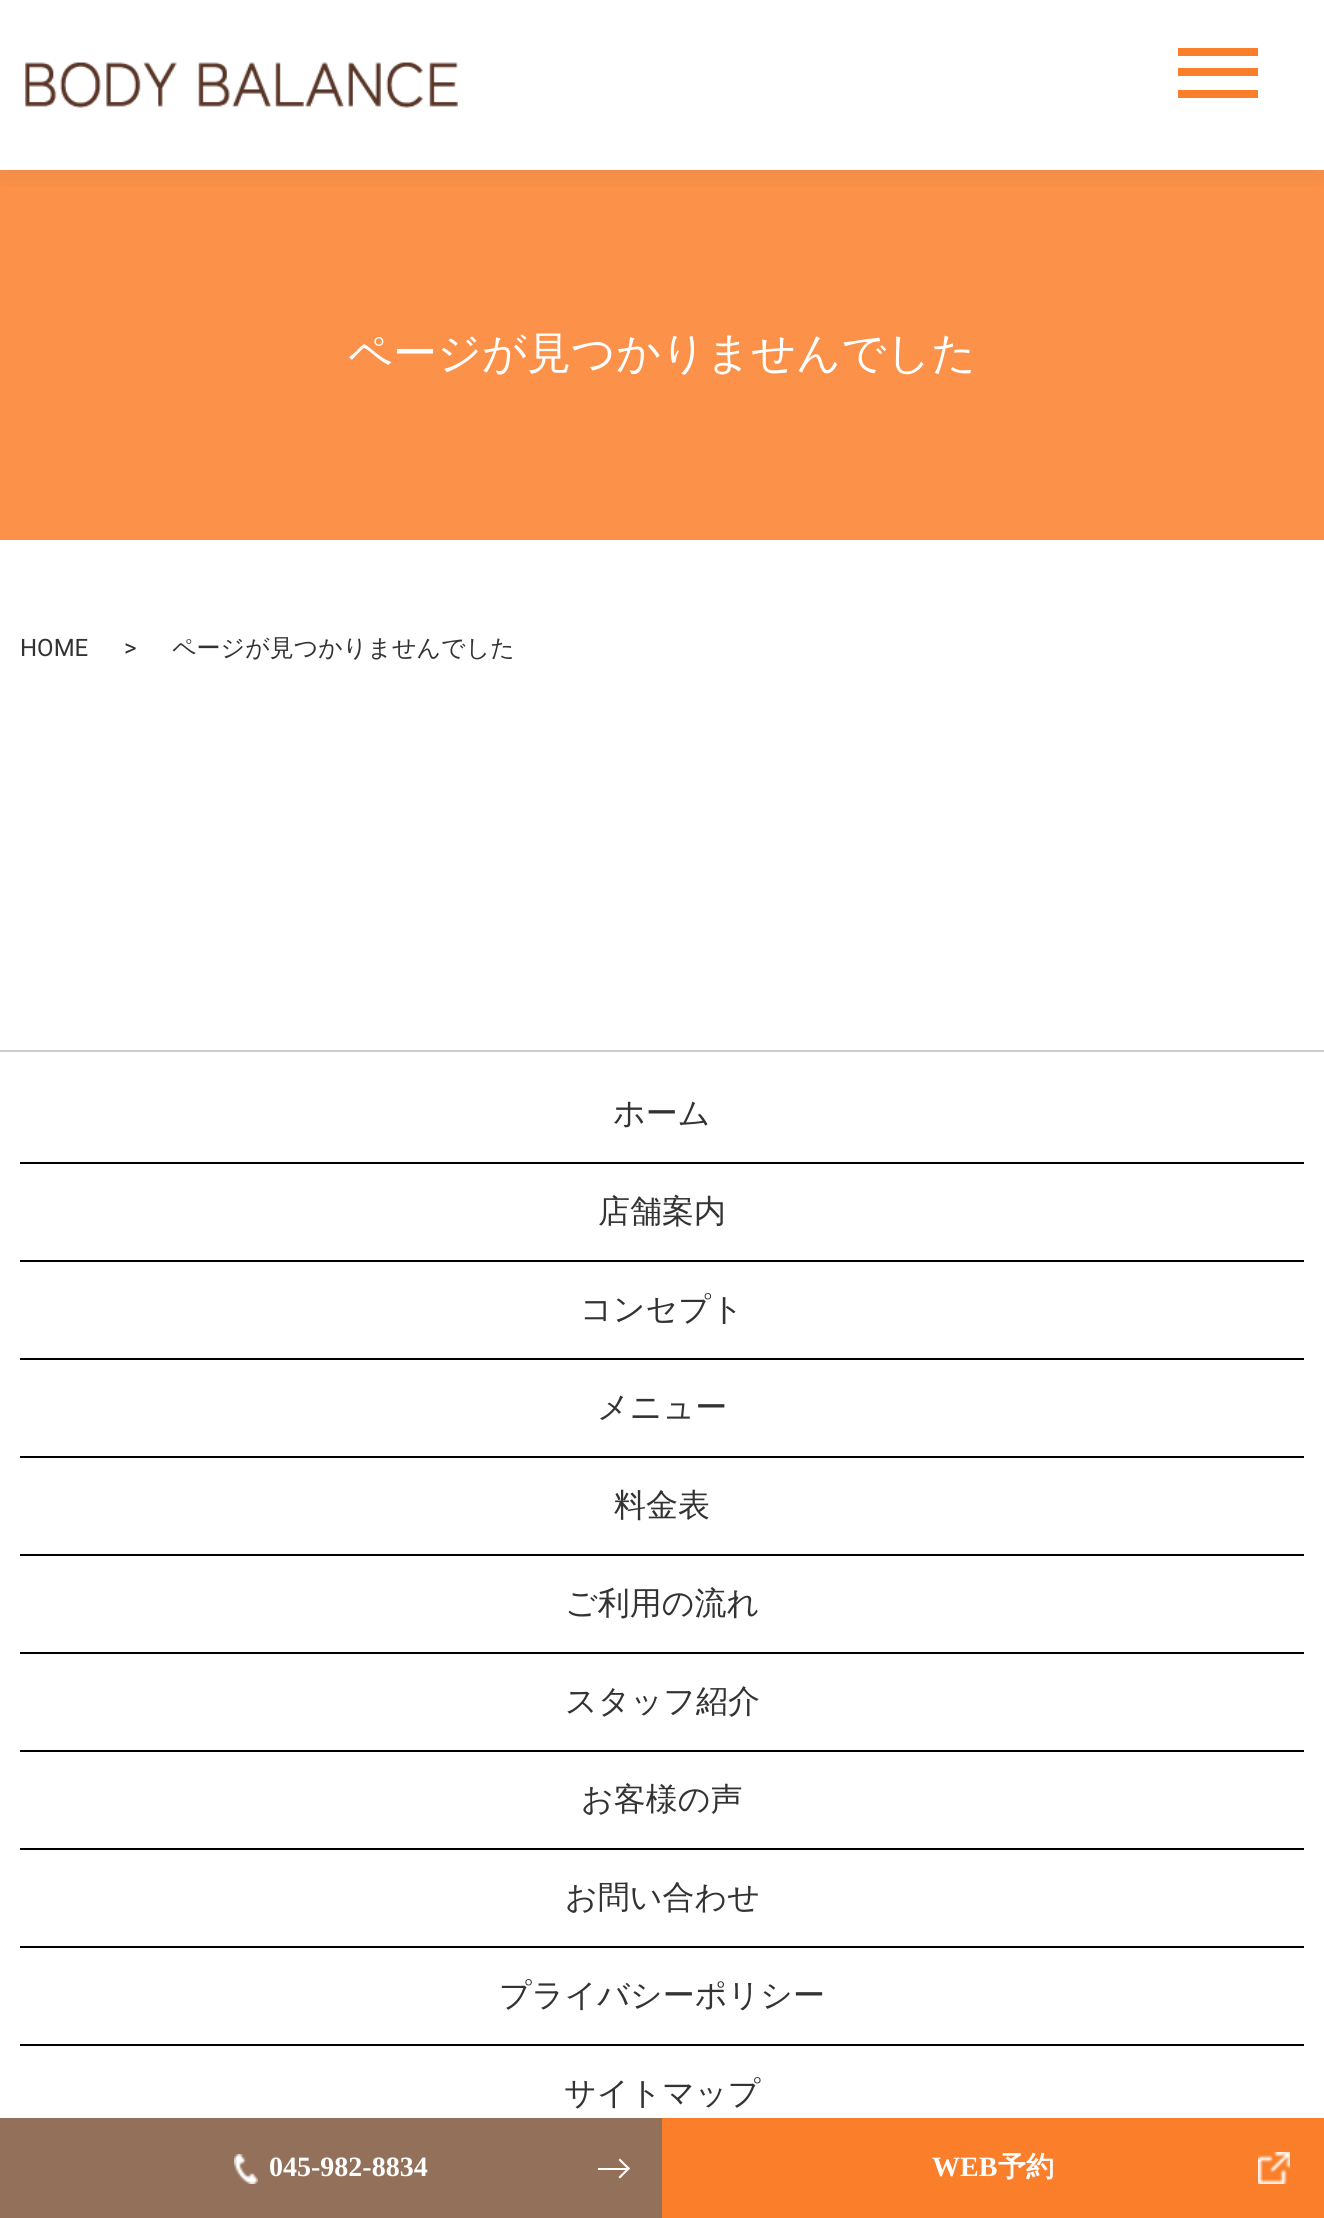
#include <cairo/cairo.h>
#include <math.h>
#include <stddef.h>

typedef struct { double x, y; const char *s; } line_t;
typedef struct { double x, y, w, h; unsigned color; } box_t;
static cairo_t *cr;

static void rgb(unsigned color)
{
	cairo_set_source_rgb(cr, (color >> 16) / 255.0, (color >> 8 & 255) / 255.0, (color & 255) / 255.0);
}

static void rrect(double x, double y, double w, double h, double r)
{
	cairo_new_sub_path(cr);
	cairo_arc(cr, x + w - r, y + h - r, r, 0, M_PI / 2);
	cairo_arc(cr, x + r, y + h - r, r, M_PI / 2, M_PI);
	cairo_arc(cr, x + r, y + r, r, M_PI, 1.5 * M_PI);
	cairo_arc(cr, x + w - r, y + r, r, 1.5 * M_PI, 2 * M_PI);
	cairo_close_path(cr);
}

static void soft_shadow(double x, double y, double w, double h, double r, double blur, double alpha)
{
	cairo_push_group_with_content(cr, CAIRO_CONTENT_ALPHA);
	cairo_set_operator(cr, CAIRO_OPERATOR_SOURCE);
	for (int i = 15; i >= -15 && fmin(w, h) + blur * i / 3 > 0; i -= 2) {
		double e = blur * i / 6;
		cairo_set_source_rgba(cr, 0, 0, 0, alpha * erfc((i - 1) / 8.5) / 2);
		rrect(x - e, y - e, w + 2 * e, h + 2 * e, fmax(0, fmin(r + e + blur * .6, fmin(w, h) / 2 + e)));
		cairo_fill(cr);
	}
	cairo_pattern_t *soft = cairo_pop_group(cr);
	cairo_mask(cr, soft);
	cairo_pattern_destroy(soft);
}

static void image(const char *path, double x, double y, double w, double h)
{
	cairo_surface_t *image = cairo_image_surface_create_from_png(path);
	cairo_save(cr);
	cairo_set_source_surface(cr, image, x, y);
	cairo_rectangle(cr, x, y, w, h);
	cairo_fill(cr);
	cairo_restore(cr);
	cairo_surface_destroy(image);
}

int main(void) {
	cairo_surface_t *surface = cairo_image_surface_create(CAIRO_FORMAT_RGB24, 1324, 2218);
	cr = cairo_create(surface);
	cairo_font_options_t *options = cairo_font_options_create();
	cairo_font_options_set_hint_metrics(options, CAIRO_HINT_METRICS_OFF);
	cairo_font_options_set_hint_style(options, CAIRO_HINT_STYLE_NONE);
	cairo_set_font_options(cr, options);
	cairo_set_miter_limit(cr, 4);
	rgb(0xffffff);
	cairo_paint(cr);
	{
		static const box_t items[] = {
			{0, 170, 1324, 370, 0xfc914a},
			{0, 1050, 1324, 2, 0xcccccc},
			{20, 1162, 1284, 2, 0x000000},
			{20, 1260, 1284, 2, 0x000000},
			{20, 1358, 1284, 2, 0x000000},
			{20, 1456, 1284, 2, 0x000000},
			{20, 1554, 1284, 2, 0x000000},
			{20, 1652, 1284, 2, 0x000000},
			{20, 1750, 1284, 2, 0x000000},
			{20, 1848, 1284, 2, 0x000000},
			{20, 1946, 1284, 2, 0x000000},
			{20, 2044, 1284, 2, 0x000000},
		};
		for (size_t i = 0; i < sizeof items / sizeof *items; i++) {
			rgb(items[i].color);
			cairo_rectangle(cr, items[i].x, items[i].y, items[i].w, items[i].h);
			cairo_fill(cr);
		}
	}
	cairo_save(cr);
	cairo_rectangle(cr, 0, 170, 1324, 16);
	cairo_clip(cr);
	rgb(0x333333);
	soft_shadow(6, 6, 1312, 158, 0, 20, 0.15);
	cairo_restore(cr);
	image("img/1.png", 25, 62, 433, 46);
	{
		static const box_t items[] = {
			{1178, 48, 80, 8, 0xfb7e2a},
			{1178, 68, 80, 8, 0xfb7e2a},
			{1178, 90, 80, 8, 0xfb7e2a},
			{0, 2118, 662, 100, 0x92705a},
		};
		for (size_t i = 0; i < sizeof items / sizeof *items; i++) {
			rgb(items[i].color);
			cairo_rectangle(cr, items[i].x, items[i].y, items[i].w, items[i].h);
			cairo_fill(cr);
		}
	}
	image("img/2.png", 234, 2154, 24, 30);
	rgb(0xffffff);
	cairo_rectangle(cr, 598, 2168, 30, 2);
	cairo_fill(cr);
	cairo_new_path(cr);
	cairo_move_to(cr, 620, 2158.5);
	cairo_line_to(cr, 630, 2168.5);
	cairo_line_to(cr, 628.5, 2170);
	cairo_line_to(cr, 618.5, 2160);
	cairo_close_path(cr);
	cairo_fill(cr);
	cairo_new_path(cr);
	cairo_move_to(cr, 628.5, 2167);
	cairo_line_to(cr, 630, 2168.5);
	cairo_line_to(cr, 620, 2178.5);
	cairo_line_to(cr, 618.5, 2177);
	cairo_close_path(cr);
	cairo_fill(cr);
	rgb(0xfb7e2a);
	cairo_rectangle(cr, 662, 2118, 662, 100);
	cairo_fill(cr);
	image("img/3.png", 1258, 2152, 32, 32);
	cairo_select_font_face(cr, "WenQuanYi Zen Hei Medium", CAIRO_FONT_SLANT_NORMAL, CAIRO_FONT_WEIGHT_NORMAL);
	cairo_set_font_size(cr, 44);
	rgb(0xffffff);
	cairo_move_to(cr, 348, 368);
	cairo_show_text(cr, "ページが見つかりませんでした");
	cairo_select_font_face(cr, "Roboto", CAIRO_FONT_SLANT_NORMAL, CAIRO_FONT_WEIGHT_NORMAL);
	cairo_set_font_size(cr, 24);
	rgb(0x333333);
	cairo_move_to(cr, 20, 656);
	cairo_show_text(cr, "HOME");
	cairo_move_to(cr, 124, 656);
	cairo_show_text(cr, ">");
	cairo_select_font_face(cr, "WenQuanYi Zen Hei Medium", CAIRO_FONT_SLANT_NORMAL, CAIRO_FONT_WEIGHT_NORMAL);
	cairo_move_to(cr, 172, 656);
	cairo_show_text(cr, "ページが見つかりませんでした");
	cairo_set_font_size(cr, 32);
	{
		static const line_t items[] = {
			{613, 1124, "ホーム"},
			{598, 1222, "店舗案内"},
			{580, 1320, "コンセプト"},
			{597, 1418, "メニュー"},
			{614, 1516, "料金表"},
			{565, 1614, "ご利用の流れ"},
			{565, 1712, "スタッフ紹介"},
			{581, 1810, "お客様の声"},
			{565, 1908, "お問い合わせ"},
			{499, 2006, "プライバシーポリシー"},
			{564, 2104, "サイトマップ"},
		};
		for (size_t i = 0; i < sizeof items / sizeof *items; i++) {
			cairo_move_to(cr, items[i].x, items[i].y);
			cairo_show_text(cr, items[i].s);
		}
	}
	cairo_select_font_face(cr, "Liberation Serif", CAIRO_FONT_SLANT_NORMAL, CAIRO_FONT_WEIGHT_BOLD);
	cairo_set_font_size(cr, 28);
	rgb(0xffffff);
	cairo_move_to(cr, 269, 2176);
	cairo_show_text(cr, "045-982-8834");
	cairo_move_to(cr, 932, 2176);
	cairo_show_text(cr, "WEB");
	cairo_select_font_face(cr, "WenQuanYi Zen Hei", CAIRO_FONT_SLANT_NORMAL, CAIRO_FONT_WEIGHT_BOLD);
	cairo_move_to(cr, 998, 2176);
	cairo_show_text(cr, "予約");
	cairo_surface_write_to_png(surface, "page.png");
	cairo_font_options_destroy(options);
	cairo_destroy(cr);
	cairo_surface_destroy(surface);
	return 0;
}
